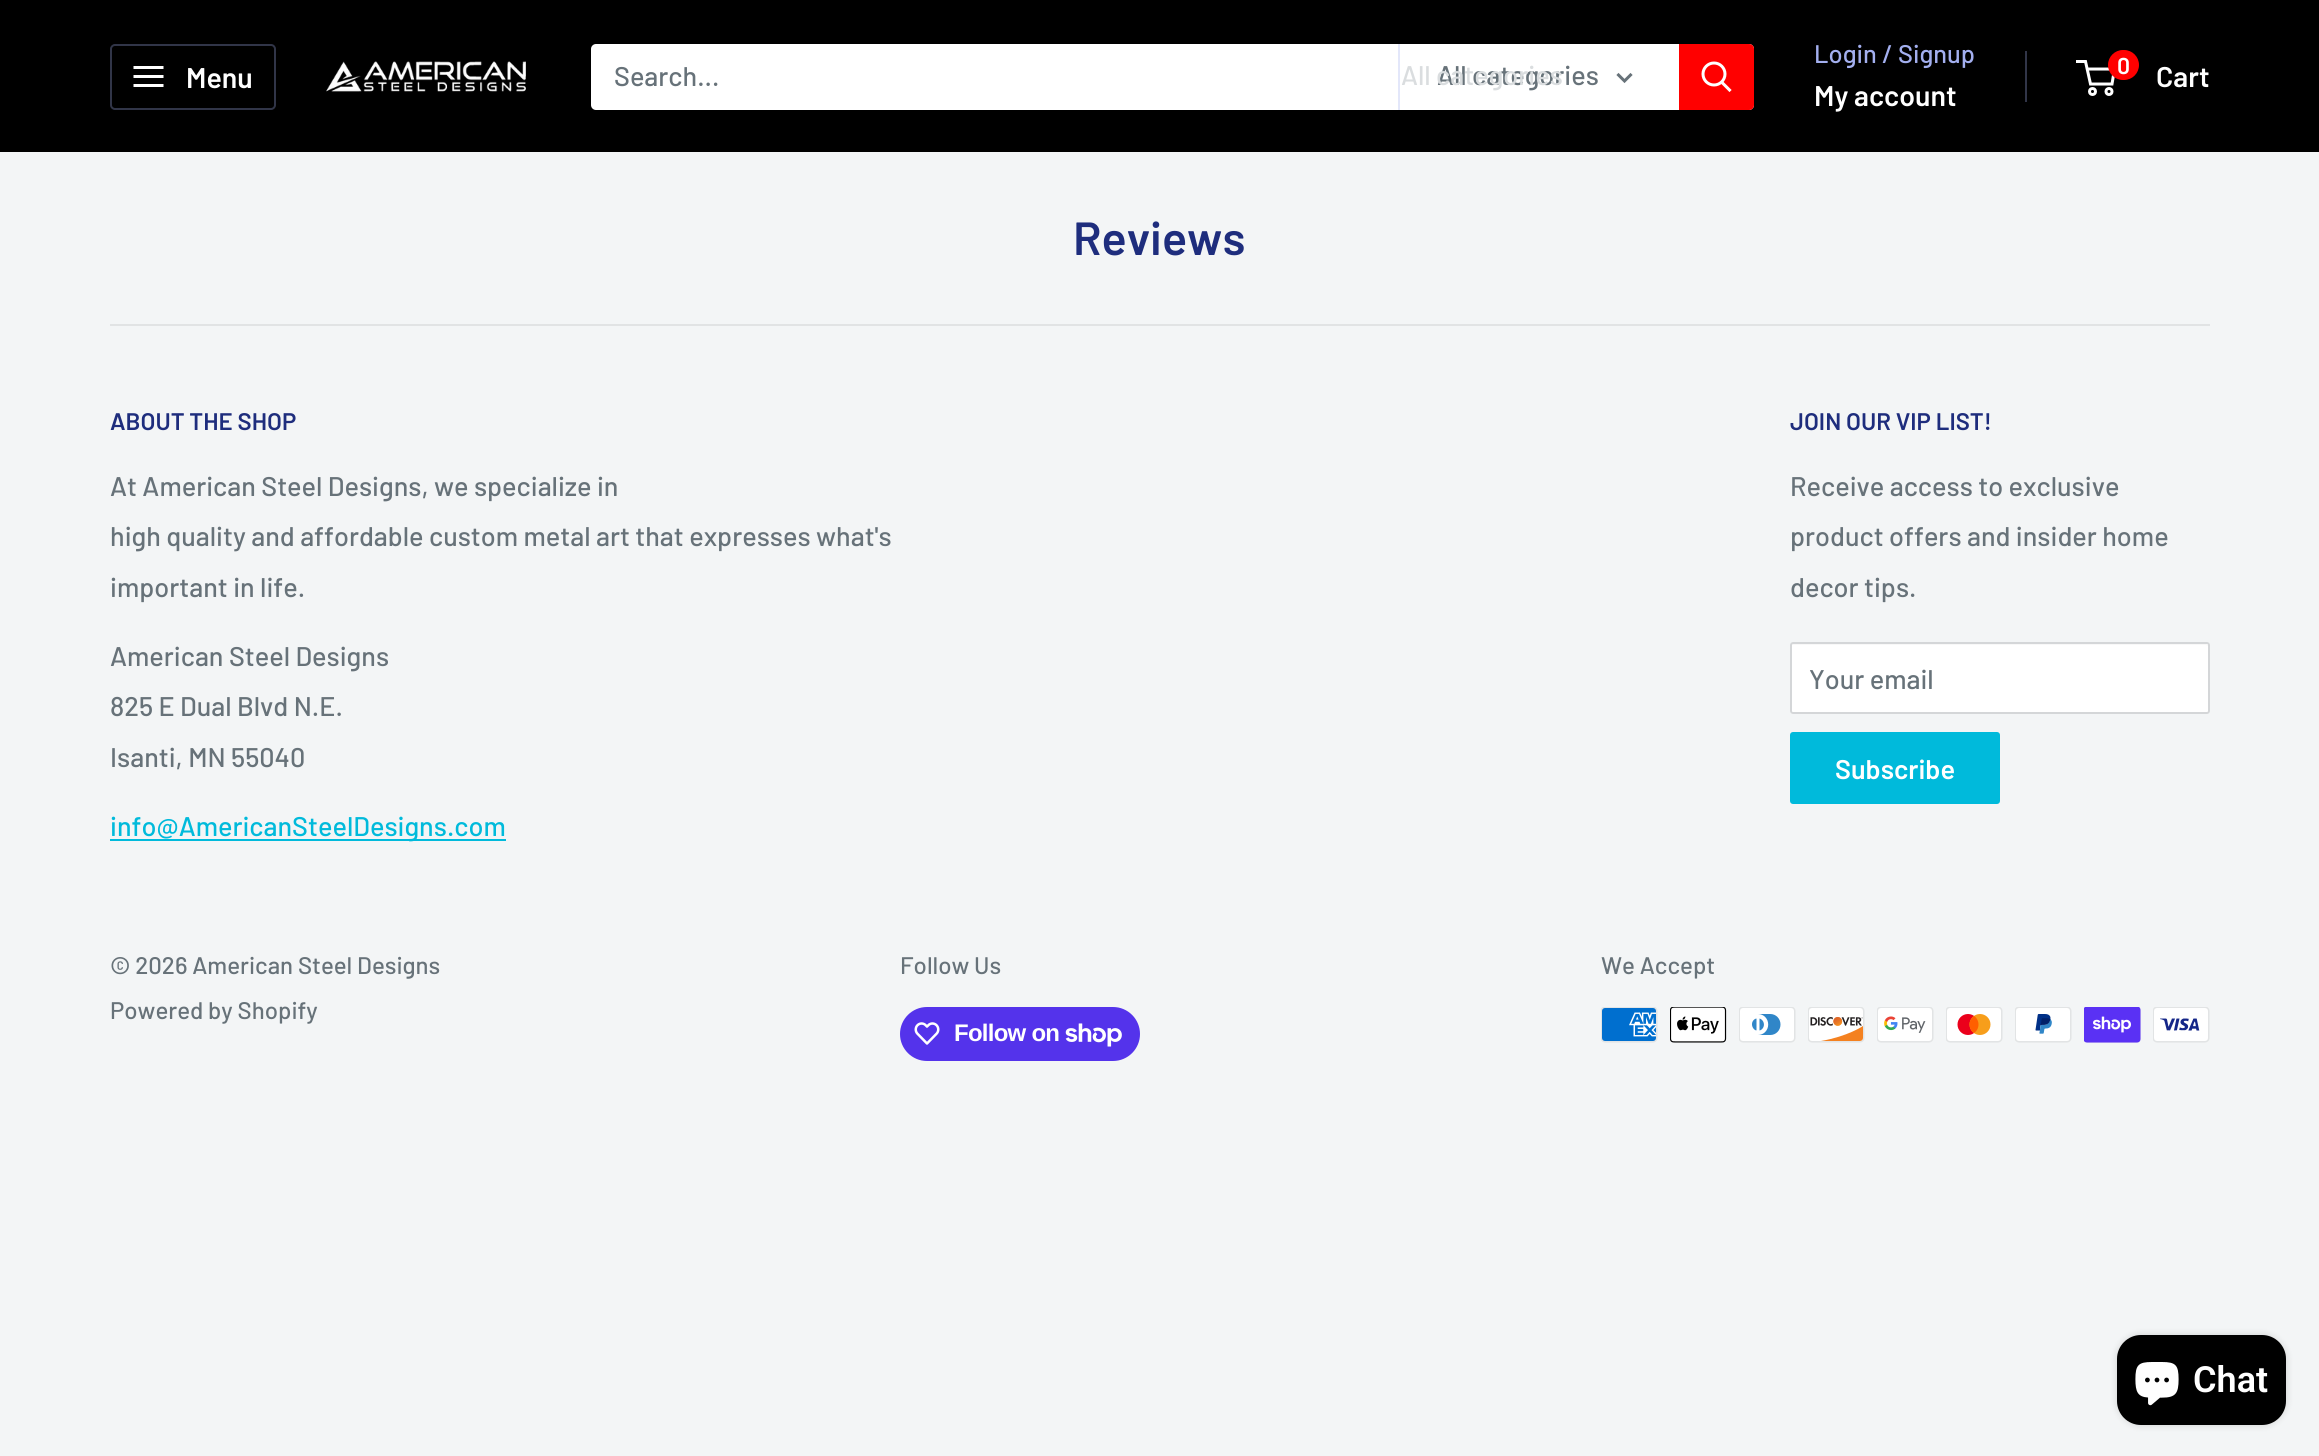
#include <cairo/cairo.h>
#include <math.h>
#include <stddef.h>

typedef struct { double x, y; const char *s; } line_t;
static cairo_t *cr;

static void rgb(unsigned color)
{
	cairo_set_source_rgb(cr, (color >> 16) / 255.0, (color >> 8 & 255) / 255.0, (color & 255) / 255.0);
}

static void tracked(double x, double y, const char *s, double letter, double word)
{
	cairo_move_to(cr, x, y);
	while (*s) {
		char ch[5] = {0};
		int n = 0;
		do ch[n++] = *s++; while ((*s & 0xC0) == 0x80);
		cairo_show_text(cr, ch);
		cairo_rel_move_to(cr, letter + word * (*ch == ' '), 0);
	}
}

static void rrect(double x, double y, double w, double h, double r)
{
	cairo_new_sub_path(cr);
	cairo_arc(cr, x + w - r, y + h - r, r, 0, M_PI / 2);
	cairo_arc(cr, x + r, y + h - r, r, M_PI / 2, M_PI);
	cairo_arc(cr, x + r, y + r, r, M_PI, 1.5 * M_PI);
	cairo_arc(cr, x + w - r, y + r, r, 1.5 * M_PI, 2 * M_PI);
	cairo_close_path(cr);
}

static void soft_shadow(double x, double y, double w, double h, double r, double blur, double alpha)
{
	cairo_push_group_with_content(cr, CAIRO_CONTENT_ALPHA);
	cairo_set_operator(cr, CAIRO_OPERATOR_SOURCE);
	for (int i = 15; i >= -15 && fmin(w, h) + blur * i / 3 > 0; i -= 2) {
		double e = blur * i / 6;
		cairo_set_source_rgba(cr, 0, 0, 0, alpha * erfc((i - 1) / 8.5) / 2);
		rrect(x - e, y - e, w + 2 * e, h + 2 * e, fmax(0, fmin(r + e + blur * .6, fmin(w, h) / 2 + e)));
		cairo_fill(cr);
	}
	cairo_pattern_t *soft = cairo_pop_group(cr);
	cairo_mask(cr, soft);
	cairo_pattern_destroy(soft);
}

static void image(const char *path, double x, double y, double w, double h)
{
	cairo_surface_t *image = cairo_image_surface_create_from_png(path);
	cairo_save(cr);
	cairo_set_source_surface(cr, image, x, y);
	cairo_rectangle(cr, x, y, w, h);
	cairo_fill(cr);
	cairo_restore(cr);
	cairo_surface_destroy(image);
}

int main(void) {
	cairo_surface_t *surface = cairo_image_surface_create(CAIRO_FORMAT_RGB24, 2319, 1456);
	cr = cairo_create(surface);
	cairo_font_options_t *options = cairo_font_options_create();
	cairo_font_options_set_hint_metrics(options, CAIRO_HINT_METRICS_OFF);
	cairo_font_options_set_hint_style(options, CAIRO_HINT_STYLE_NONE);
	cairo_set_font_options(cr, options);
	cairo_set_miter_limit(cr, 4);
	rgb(0xf3f5f6);
	cairo_paint(cr);
	rgb(0x000000);
	cairo_rectangle(cr, 0, 0, 2319, 152);
	cairo_fill(cr);
	rrect(111, 45, 164, 64, 4);
	rgb(0x313548);
	cairo_stroke(cr);
	image("img/1.png", 133, 66, 31, 21);
	image("img/2.png", 326, 61, 200, 31);
	rgb(0xffffff);
	rrect(591, 44, 1163, 66, 5);
	cairo_fill(cr);
	rgb(0xe3e7fa);
	cairo_rectangle(cr, 1398, 44, 2, 66);
	cairo_fill(cr);
	cairo_new_path(cr);
	cairo_move_to(cr, 1630.5, 75);
	cairo_line_to(cr, 1624.5, 81);
	cairo_line_to(cr, 1618.5, 75);
	rgb(0x677279);
	cairo_set_line_width(cr, 3);
	cairo_set_line_cap(cr, CAIRO_LINE_CAP_SQUARE);
	cairo_stroke(cr);
	rgb(0xff0000);
	cairo_new_path(cr);
	cairo_move_to(cr, 1679, 44);
	cairo_line_to(cr, 1749, 44);
	cairo_curve_to(cr, 1752, 44, 1754, 46, 1754, 49);
	cairo_line_to(cr, 1754, 105);
	cairo_curve_to(cr, 1754, 108, 1752, 110, 1749, 110);
	cairo_line_to(cr, 1679, 110);
	cairo_close_path(cr);
	cairo_fill(cr);
	cairo_new_path(cr);
	cairo_move_to(cr, 1729.5, 90);
	cairo_line_to(cr, 1722, 82.5);
	rgb(0xffffff);
	cairo_stroke(cr);
	cairo_arc(cr, 1714, 74, 11, 0, 2 * M_PI);
	cairo_set_line_cap(cr, CAIRO_LINE_CAP_BUTT);
	cairo_stroke(cr);
	rgb(0x313548);
	cairo_rectangle(cr, 2025, 51, 2, 51);
	cairo_fill(cr);
	cairo_arc(cr, 2092.5, 91.5, 3, 0, 2 * M_PI);
	rgb(0xffffff);
	cairo_stroke(cr);
	cairo_arc(cr, 2109, 91.5, 3, 0, 2 * M_PI);
	cairo_stroke(cr);
	cairo_new_path(cr);
	cairo_move_to(cr, 2087, 69);
	cairo_line_to(cr, 2114.5, 69);
	cairo_line_to(cr, 2112, 84);
	cairo_line_to(cr, 2090.5, 84);
	cairo_line_to(cr, 2085.5, 61.5);
	cairo_line_to(cr, 2076, 61.5);
	cairo_stroke(cr);
	rgb(0xff0000);
	rrect(2108, 50, 31, 30, 15);
	cairo_fill(cr);
	rgb(0xe1e3e4);
	cairo_rectangle(cr, 110, 324, 2100, 2);
	cairo_fill(cr);
	rgb(0x00badb);
	cairo_rectangle(cr, 110, 839, 396, 2);
	cairo_fill(cr);
	rgb(0xffffff);
	rrect(1790, 642, 420, 72, 3);
	cairo_fill(cr);
	rgb(0xf8f8f8);
	cairo_new_path(cr);
	cairo_move_to(cr, 1792, 645);
	cairo_line_to(cr, 2206, 645);
	cairo_line_to(cr, 2208, 646);
	cairo_curve_to(cr, 2208, 645, 2208, 644, 2206, 644);
	cairo_line_to(cr, 1792, 644);
	cairo_curve_to(cr, 1791, 644, 1791, 645, 1791, 646);
	cairo_close_path(cr);
	cairo_fill(cr);
	rrect(1791, 643, 418, 70, 2);
	rgb(0xd4d6d8);
	cairo_set_line_width(cr, 2);
	cairo_stroke(cr);
	rgb(0x00badb);
	rrect(1790, 732, 210, 72, 3);
	cairo_fill(cr);
	rgb(0x5433eb);
	rrect(900, 1007, 240, 54, 27);
	cairo_fill(cr);
	image("img/3.png", 914, 1022, 26, 23);
	image("img/4.png", 1065, 1023, 57, 24);
	image("img/5.png", 1601, 1007, 57, 36);
	image("img/6.png", 1670, 1007, 57, 36);
	image("img/7.png", 1739, 1007, 57, 36);
	image("img/8.png", 1808, 1007, 57, 36);
	image("img/9.png", 1877, 1007, 57, 36);
	image("img/10.png", 1946, 1007, 57, 36);
	image("img/11.png", 2015, 1007, 57, 36);
	image("img/12.png", 2084, 1007, 57, 36);
	image("img/13.png", 2153, 1007, 57, 36);
	rgb(0x000000);
	soft_shadow(2117, 1335, 169, 90, 24, 4, 0.15);
	rgb(0x000000);
	rrect(2117, 1335, 169, 90, 24);
	cairo_fill(cr);
	image("img/14.png", 2135, 1362, 44, 44);
	cairo_select_font_face(cr, "Barlow SemiBold", CAIRO_FONT_SLANT_NORMAL, CAIRO_FONT_WEIGHT_NORMAL);
	cairo_set_font_size(cr, 28.5);
	rgb(0xffffff);
	cairo_move_to(cr, 186, 88);
	cairo_show_text(cr, "Menu");
	cairo_select_font_face(cr, "Barlow Medium", CAIRO_FONT_SLANT_NORMAL, CAIRO_FONT_WEIGHT_NORMAL);
	cairo_set_font_size(cr, 27);
	rgb(0x677279);
	cairo_move_to(cr, 614, 86);
	cairo_show_text(cr, "Search...");
	cairo_move_to(cr, 1437, 85);
	cairo_show_text(cr, "All categories");
	rgb(0xdadddf);
	cairo_move_to(cr, 1401, 85);
	cairo_show_text(cr, "All categories");
	cairo_set_font_size(cr, 25.5);
	rgb(0xa3afef);
	cairo_move_to(cr, 1814, 63);
	cairo_show_text(cr, "Login / Signup");
	cairo_select_font_face(cr, "Barlow SemiBold", CAIRO_FONT_SLANT_NORMAL, CAIRO_FONT_WEIGHT_NORMAL);
	cairo_set_font_size(cr, 28.5);
	rgb(0xffffff);
	cairo_move_to(cr, 1814, 106);
	cairo_show_text(cr, "My account");
	cairo_set_font_size(cr, 23);
	cairo_move_to(cr, 2117, 74);
	cairo_show_text(cr, "0");
	cairo_set_font_size(cr, 28.5);
	cairo_move_to(cr, 2156, 87);
	cairo_show_text(cr, "Cart");
	cairo_set_font_size(cr, 46.5);
	rgb(0x1e2d7d);
	cairo_move_to(cr, 1073, 255);
	cairo_show_text(cr, "Reviews");
	cairo_set_font_size(cr, 24);
	cairo_move_to(cr, 110, 430);
	cairo_show_text(cr, "ABOUT THE SHOP");
	cairo_select_font_face(cr, "Barlow Medium", CAIRO_FONT_SLANT_NORMAL, CAIRO_FONT_WEIGHT_NORMAL);
	cairo_set_font_size(cr, 27);
	rgb(0x677279);
	{
		static const line_t items[] = {
			{110, 496, "At American Steel Designs, we specialize in"},
			{110, 546, "high quality and affordable custom metal art that expresses what's"},
			{110, 597, "important in life."},
			{110, 666, "American Steel Designs"},
			{110, 716, "825 E Dual Blvd N.E."},
			{110, 767, "Isanti, MN 55040"},
		};
		for (size_t i = 0; i < sizeof items / sizeof *items; i++) {
			cairo_move_to(cr, items[i].x, items[i].y);
			cairo_show_text(cr, items[i].s);
		}
	}
	rgb(0x00badb);
	cairo_move_to(cr, 110, 836);
	cairo_show_text(cr, "info@AmericanSteelDesigns.com");
	cairo_select_font_face(cr, "Barlow SemiBold", CAIRO_FONT_SLANT_NORMAL, CAIRO_FONT_WEIGHT_NORMAL);
	cairo_set_font_size(cr, 24);
	rgb(0x1e2d7d);
	cairo_move_to(cr, 1790, 430);
	cairo_show_text(cr, "JOIN OUR VIP LIST!");
	cairo_select_font_face(cr, "Barlow Medium", CAIRO_FONT_SLANT_NORMAL, CAIRO_FONT_WEIGHT_NORMAL);
	cairo_set_font_size(cr, 27);
	rgb(0x677279);
	{
		static const line_t items[] = {
			{1790, 496, "Receive access to exclusive"},
			{1790, 546, "product offers and insider home"},
			{1790, 597, "decor tips."},
			{1809, 689, "Your email"},
		};
		for (size_t i = 0; i < sizeof items / sizeof *items; i++) {
			cairo_move_to(cr, items[i].x, items[i].y);
			cairo_show_text(cr, items[i].s);
		}
	}
	cairo_select_font_face(cr, "Barlow SemiBold", CAIRO_FONT_SLANT_NORMAL, CAIRO_FONT_WEIGHT_NORMAL);
	rgb(0xffffff);
	cairo_move_to(cr, 1835, 779);
	cairo_show_text(cr, "Subscribe");
	cairo_select_font_face(cr, "Barlow Medium", CAIRO_FONT_SLANT_NORMAL, CAIRO_FONT_WEIGHT_NORMAL);
	cairo_set_font_size(cr, 24);
	rgb(0x677279);
	{
		static const line_t items[] = {
			{110, 974, "© 2026 American Steel Designs"},
			{110, 1019, "Powered by Shopify"},
			{900, 974, "Follow Us"},
		};
		for (size_t i = 0; i < sizeof items / sizeof *items; i++) {
			cairo_move_to(cr, items[i].x, items[i].y);
			cairo_show_text(cr, items[i].s);
		}
	}
	cairo_select_font_face(cr, "Liberation Sans", CAIRO_FONT_SLANT_NORMAL, CAIRO_FONT_WEIGHT_BOLD);
	rgb(0xffffff);
	tracked(954, 1041, "Follow on", -0.75, 0);
	cairo_select_font_face(cr, "Barlow Medium", CAIRO_FONT_SLANT_NORMAL, CAIRO_FONT_WEIGHT_NORMAL);
	rgb(0x677279);
	cairo_move_to(cr, 1601, 974);
	cairo_show_text(cr, "We Accept");
	cairo_select_font_face(cr, "Roboto SemiBold", CAIRO_FONT_SLANT_NORMAL, CAIRO_FONT_WEIGHT_NORMAL);
	cairo_set_font_size(cr, 36);
	rgb(0xffffff);
	cairo_move_to(cr, 2193, 1392);
	cairo_show_text(cr, "Chat");
	cairo_surface_write_to_png(surface, "page.png");
	cairo_font_options_destroy(options);
	cairo_destroy(cr);
	cairo_surface_destroy(surface);
	return 0;
}
